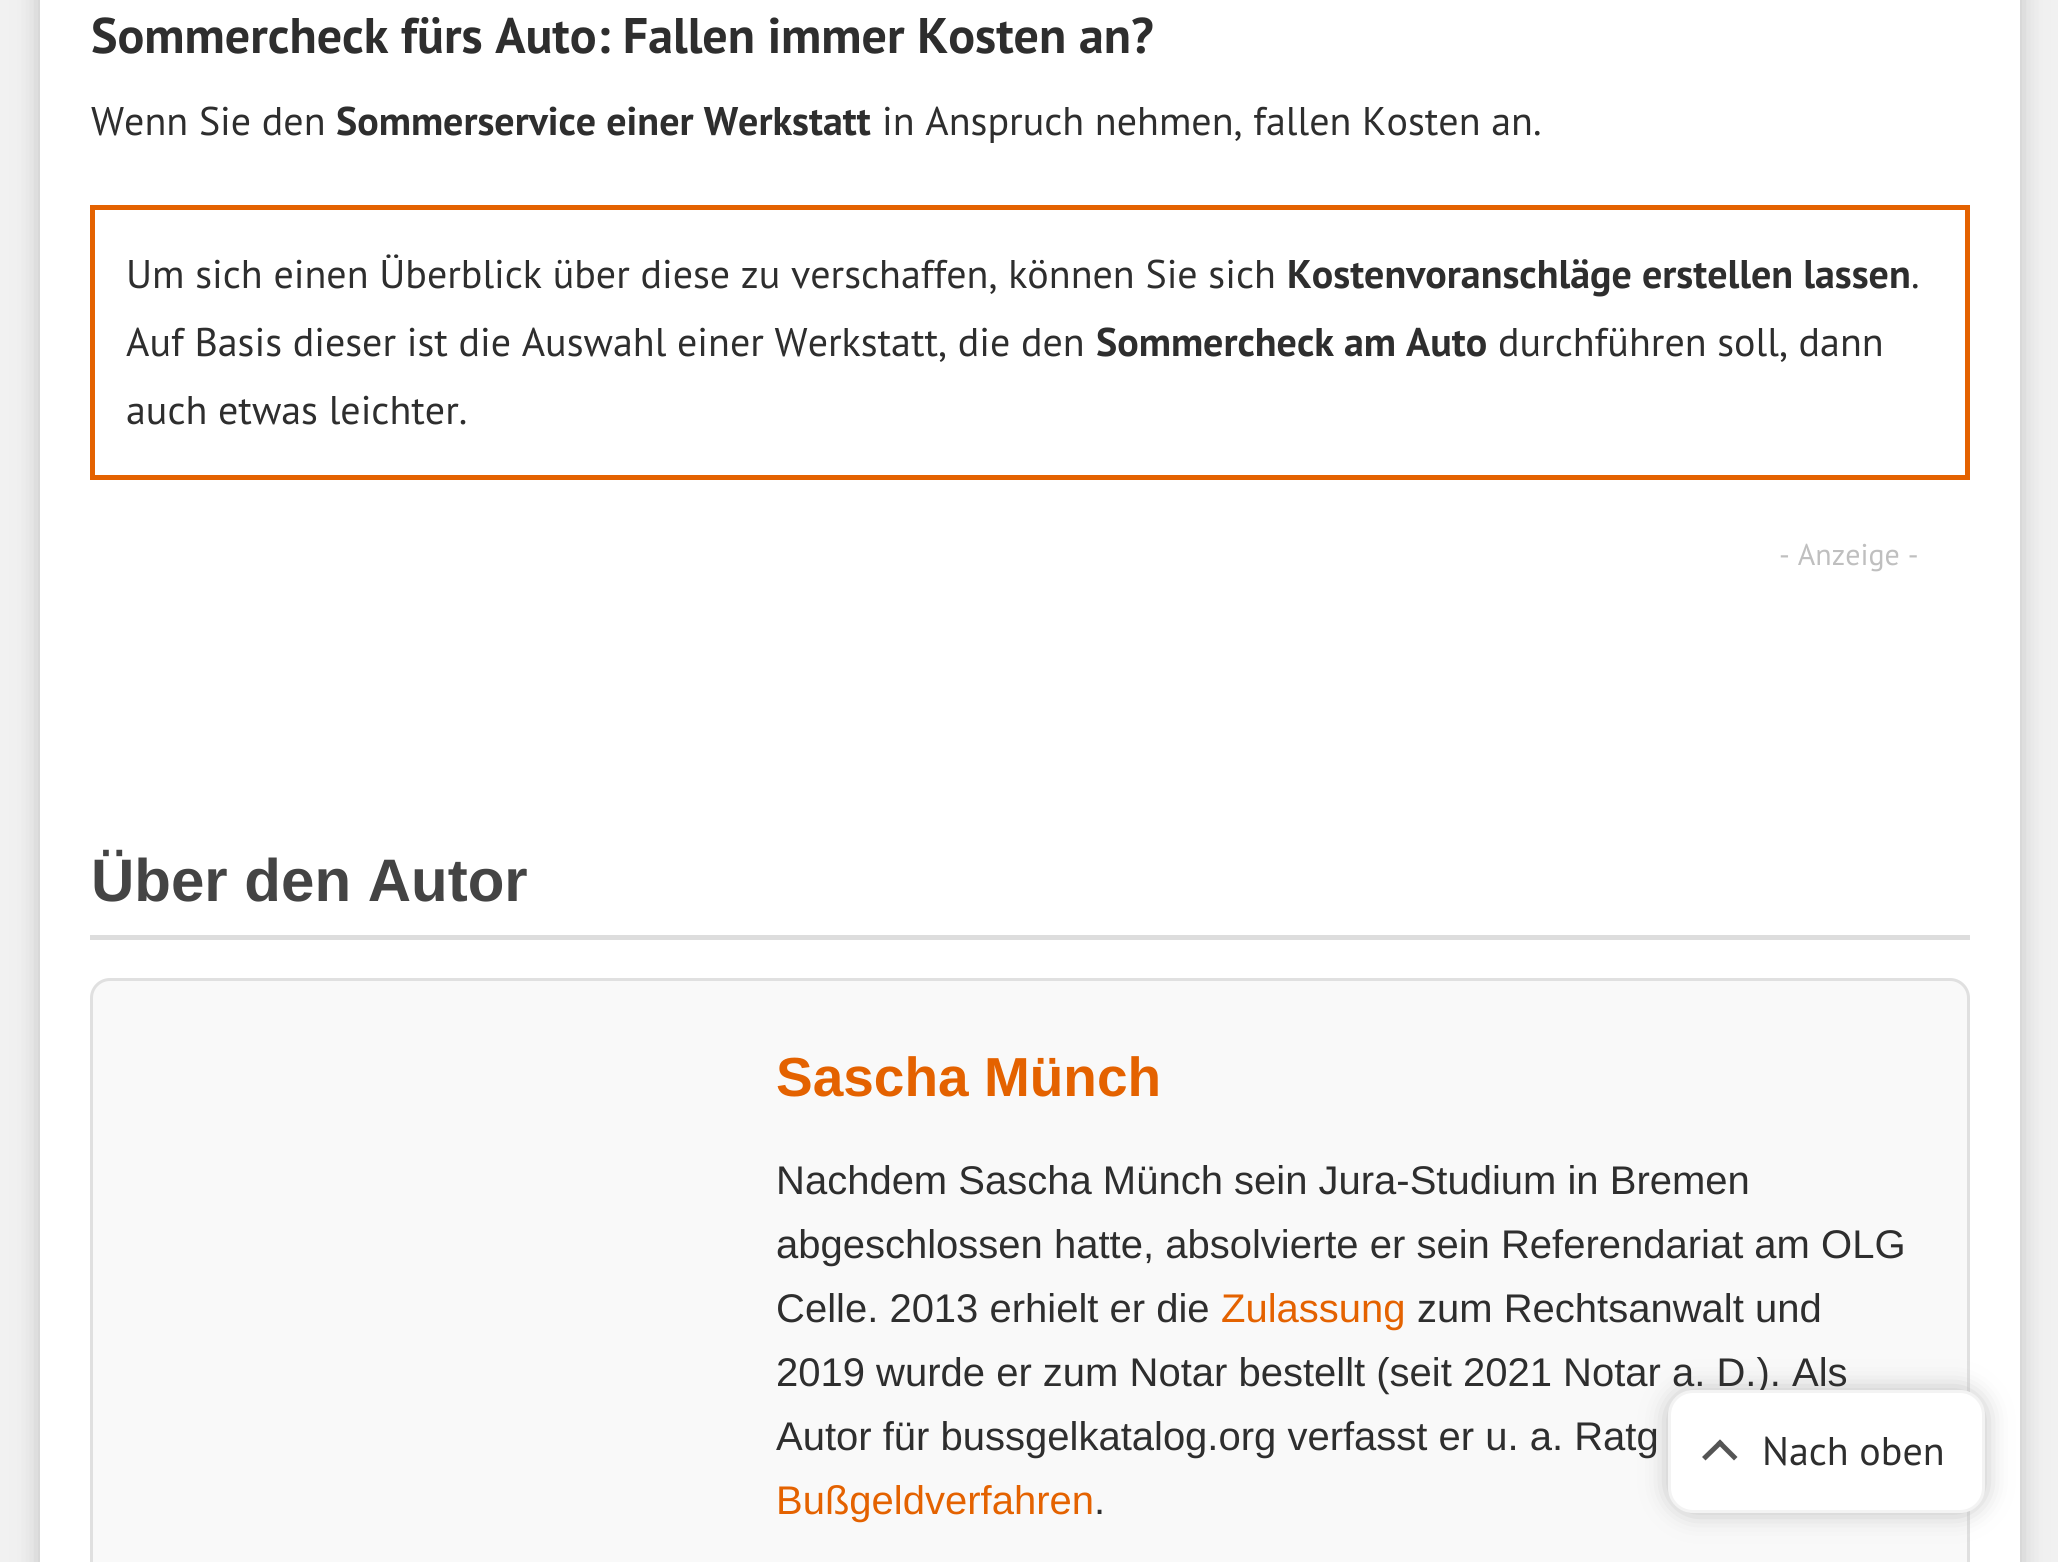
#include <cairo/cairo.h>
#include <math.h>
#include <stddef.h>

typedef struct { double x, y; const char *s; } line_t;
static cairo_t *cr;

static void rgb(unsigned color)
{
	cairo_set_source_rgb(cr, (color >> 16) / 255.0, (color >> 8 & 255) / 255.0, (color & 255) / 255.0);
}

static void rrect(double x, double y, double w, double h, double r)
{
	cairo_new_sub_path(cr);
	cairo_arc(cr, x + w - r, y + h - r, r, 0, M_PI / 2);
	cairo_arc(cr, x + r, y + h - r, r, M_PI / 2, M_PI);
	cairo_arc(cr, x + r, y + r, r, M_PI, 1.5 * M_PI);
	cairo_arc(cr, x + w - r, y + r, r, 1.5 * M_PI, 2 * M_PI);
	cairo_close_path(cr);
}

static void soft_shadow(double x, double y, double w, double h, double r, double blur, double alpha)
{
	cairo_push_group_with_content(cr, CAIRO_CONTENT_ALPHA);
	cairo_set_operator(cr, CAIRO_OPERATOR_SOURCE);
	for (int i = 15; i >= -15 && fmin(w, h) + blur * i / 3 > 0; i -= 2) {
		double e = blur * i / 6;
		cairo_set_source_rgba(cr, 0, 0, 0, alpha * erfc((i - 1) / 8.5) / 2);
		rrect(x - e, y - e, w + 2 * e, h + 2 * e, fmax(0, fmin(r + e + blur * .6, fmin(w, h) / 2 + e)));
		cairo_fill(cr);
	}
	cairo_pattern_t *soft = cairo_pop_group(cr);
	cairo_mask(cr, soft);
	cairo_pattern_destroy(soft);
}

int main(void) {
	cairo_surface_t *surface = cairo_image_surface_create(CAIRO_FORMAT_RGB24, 2058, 1562);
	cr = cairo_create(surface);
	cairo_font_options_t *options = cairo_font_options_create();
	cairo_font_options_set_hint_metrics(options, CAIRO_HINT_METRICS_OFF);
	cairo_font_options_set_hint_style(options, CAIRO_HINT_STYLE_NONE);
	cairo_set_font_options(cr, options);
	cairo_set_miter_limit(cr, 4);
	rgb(0xf1f1f1);
	cairo_paint(cr);
	rgb(0xbfbfbf);
	soft_shadow(40, -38, 1980, 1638, 0, 12.5, 1);
	rgb(0xffffff);
	cairo_rectangle(cr, 40, 0, 1980, 1562);
	cairo_fill(cr);
	cairo_rectangle(cr, 92.5, 207.5, 1875, 270);
	rgb(0xe46200);
	cairo_set_line_width(cr, 5);
	cairo_stroke(cr);
	rgb(0xdddddd);
	cairo_rectangle(cr, 90, 935, 1880, 5);
	cairo_fill(cr);
	rgb(0xf9f9f9);
	rrect(91.5, 979.5, 1877, 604, 18.5);
	cairo_fill_preserve(cr);
	rgb(0xe0e0e0);
	cairo_set_line_width(cr, 3);
	cairo_stroke(cr);
	rgb(0xbfbfbf);
	soft_shadow(1668, 1390, 317, 123, 25, 12.5, 1);
	cairo_select_font_face(cr, "PT Sans", CAIRO_FONT_SLANT_NORMAL, CAIRO_FONT_WEIGHT_BOLD);
	cairo_set_font_size(cr, 50);
	rgb(0x2e2e2e);
	cairo_move_to(cr, 91, 53);
	cairo_show_text(cr, "Sommercheck fürs Auto: Fallen immer Kosten an?");
	cairo_select_font_face(cr, "PT Sans", CAIRO_FONT_SLANT_NORMAL, CAIRO_FONT_WEIGHT_NORMAL);
	cairo_set_font_size(cr, 40);
	cairo_move_to(cr, 91, 135);
	cairo_show_text(cr, "Wenn Sie den");
	cairo_select_font_face(cr, "PT Sans", CAIRO_FONT_SLANT_NORMAL, CAIRO_FONT_WEIGHT_BOLD);
	cairo_move_to(cr, 336, 135);
	cairo_show_text(cr, "Sommerservice einer Werkstatt");
	cairo_select_font_face(cr, "PT Sans", CAIRO_FONT_SLANT_NORMAL, CAIRO_FONT_WEIGHT_NORMAL);
	cairo_move_to(cr, 882, 135);
	cairo_show_text(cr, "in Anspruch nehmen, fallen Kosten an.");
	cairo_move_to(cr, 126, 288);
	cairo_show_text(cr, "Um sich einen Überblick über diese zu verschaffen, können Sie sich");
	cairo_select_font_face(cr, "PT Sans", CAIRO_FONT_SLANT_NORMAL, CAIRO_FONT_WEIGHT_BOLD);
	cairo_move_to(cr, 1287, 288);
	cairo_show_text(cr, "Kostenvoranschläge erstellen lassen");
	cairo_select_font_face(cr, "PT Sans", CAIRO_FONT_SLANT_NORMAL, CAIRO_FONT_WEIGHT_NORMAL);
	cairo_move_to(cr, 1911, 288);
	cairo_show_text(cr, ".");
	cairo_move_to(cr, 126, 356);
	cairo_show_text(cr, "Auf Basis dieser ist die Auswahl einer Werkstatt, die den");
	cairo_select_font_face(cr, "PT Sans", CAIRO_FONT_SLANT_NORMAL, CAIRO_FONT_WEIGHT_BOLD);
	cairo_move_to(cr, 1096, 356);
	cairo_show_text(cr, "Sommercheck am Auto");
	cairo_select_font_face(cr, "PT Sans", CAIRO_FONT_SLANT_NORMAL, CAIRO_FONT_WEIGHT_NORMAL);
	cairo_move_to(cr, 1498, 356);
	cairo_show_text(cr, "durchführen soll, dann");
	cairo_move_to(cr, 126, 424);
	cairo_show_text(cr, "auch etwas leichter.");
	cairo_set_font_size(cr, 30);
	rgb(0xbfbfbf);
	cairo_move_to(cr, 1779, 565);
	cairo_show_text(cr, "- Anzeige -");
	cairo_select_font_face(cr, "Liberation Sans", CAIRO_FONT_SLANT_NORMAL, CAIRO_FONT_WEIGHT_BOLD);
	cairo_set_font_size(cr, 60);
	rgb(0x444444);
	cairo_move_to(cr, 91, 901);
	cairo_show_text(cr, "Über den Autor");
	cairo_set_font_size(cr, 55);
	rgb(0xe46200);
	cairo_move_to(cr, 776, 1096);
	cairo_show_text(cr, "Sascha Münch");
	cairo_select_font_face(cr, "Liberation Sans", CAIRO_FONT_SLANT_NORMAL, CAIRO_FONT_WEIGHT_NORMAL);
	cairo_set_font_size(cr, 40);
	rgb(0x2e2e2e);
	{
		static const line_t items[] = {
			{776, 1194, "Nachdem Sascha Münch sein Jura-Studium in Bremen"},
			{776, 1258, "abgeschlossen hatte, absolvierte er sein Referendariat am OLG"},
			{776, 1322, "Celle. 2013 erhielt er die"},
		};
		for (size_t i = 0; i < sizeof items / sizeof *items; i++) {
			cairo_move_to(cr, items[i].x, items[i].y);
			cairo_show_text(cr, items[i].s);
		}
	}
	rgb(0xe46200);
	cairo_move_to(cr, 1221, 1322);
	cairo_show_text(cr, "Zulassung");
	rgb(0x2e2e2e);
	{
		static const line_t items[] = {
			{1417, 1322, "zum Rechtsanwalt und"},
			{776, 1386, "2019 wurde er zum Notar bestellt (seit 2021 Notar a. D.). Als"},
			{776, 1450, "Autor für bussgelkatalog.org verfasst er u. a. Ratg"},
		};
		for (size_t i = 0; i < sizeof items / sizeof *items; i++) {
			cairo_move_to(cr, items[i].x, items[i].y);
			cairo_show_text(cr, items[i].s);
		}
	}
	rgb(0xe46200);
	cairo_move_to(cr, 776, 1514);
	cairo_show_text(cr, "Bußgeldverfahren");
	rgb(0x2e2e2e);
	cairo_move_to(cr, 1094, 1514);
	cairo_show_text(cr, ".");
	rgb(0xffffff);
	rrect(1669.5, 1391.5, 314, 120, 23.5);
	cairo_fill_preserve(cr);
	rgb(0xf3f3f3);
	cairo_stroke(cr);
	rgb(0x555555);
	cairo_new_path(cr);
	cairo_move_to(cr, 1705.5, 1460.5);
	cairo_line_to(cr, 1702, 1457);
	cairo_line_to(cr, 1720, 1439.5);
	cairo_line_to(cr, 1723.5, 1443);
	cairo_close_path(cr);
	cairo_fill(cr);
	cairo_new_path(cr);
	cairo_move_to(cr, 1734, 1460.5);
	cairo_line_to(cr, 1716.5, 1443);
	cairo_line_to(cr, 1720, 1439.5);
	cairo_line_to(cr, 1737.5, 1457);
	cairo_close_path(cr);
	cairo_fill(cr);
	cairo_select_font_face(cr, "PT Sans", CAIRO_FONT_SLANT_NORMAL, CAIRO_FONT_WEIGHT_NORMAL);
	rgb(0x2e2e2e);
	cairo_move_to(cr, 1762, 1465);
	cairo_show_text(cr, "Nach oben");
	cairo_surface_write_to_png(surface, "page.png");
	cairo_font_options_destroy(options);
	cairo_destroy(cr);
	cairo_surface_destroy(surface);
	return 0;
}
